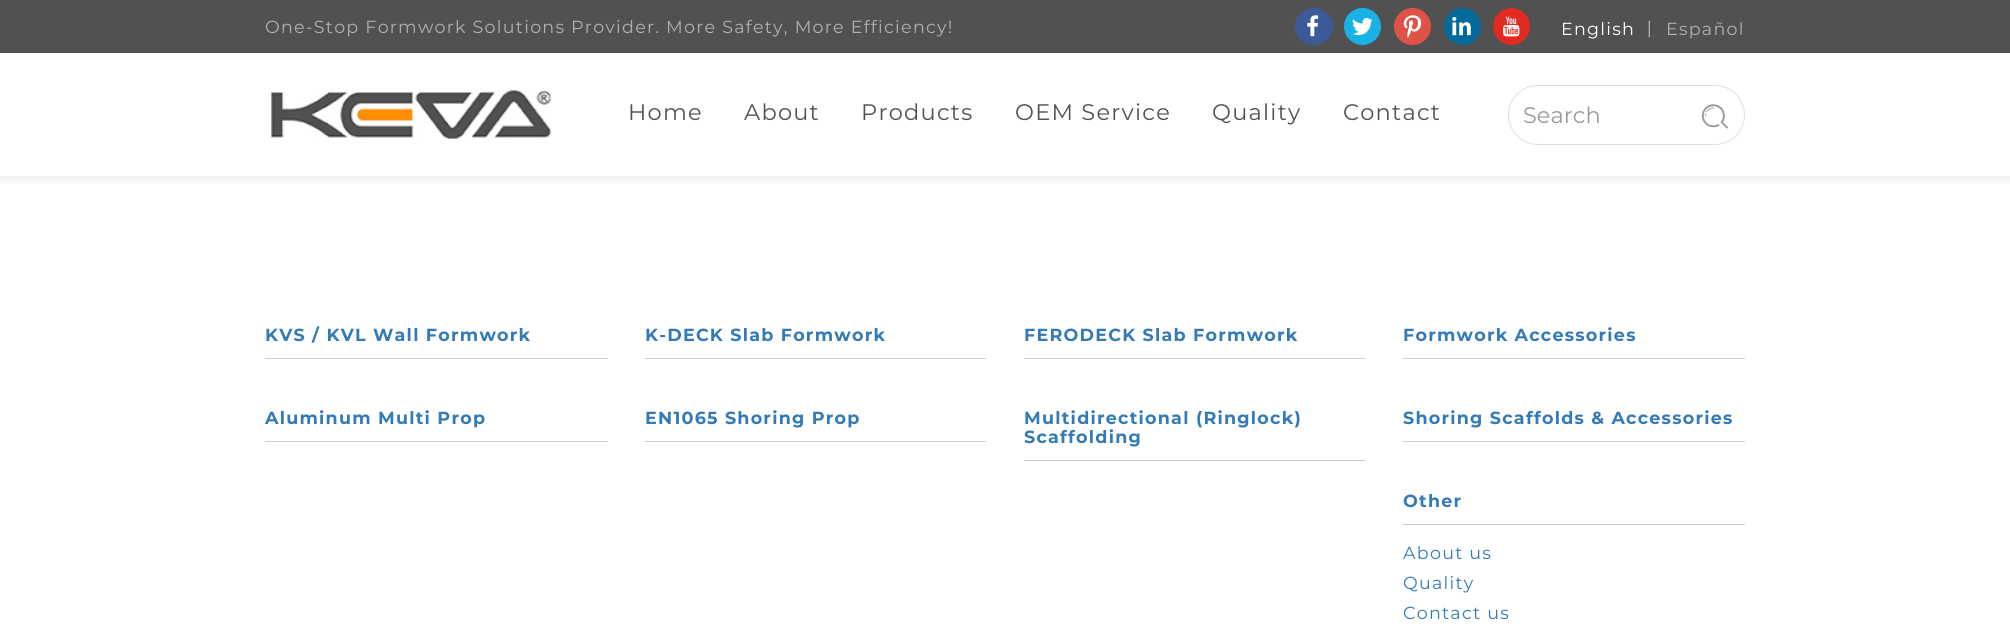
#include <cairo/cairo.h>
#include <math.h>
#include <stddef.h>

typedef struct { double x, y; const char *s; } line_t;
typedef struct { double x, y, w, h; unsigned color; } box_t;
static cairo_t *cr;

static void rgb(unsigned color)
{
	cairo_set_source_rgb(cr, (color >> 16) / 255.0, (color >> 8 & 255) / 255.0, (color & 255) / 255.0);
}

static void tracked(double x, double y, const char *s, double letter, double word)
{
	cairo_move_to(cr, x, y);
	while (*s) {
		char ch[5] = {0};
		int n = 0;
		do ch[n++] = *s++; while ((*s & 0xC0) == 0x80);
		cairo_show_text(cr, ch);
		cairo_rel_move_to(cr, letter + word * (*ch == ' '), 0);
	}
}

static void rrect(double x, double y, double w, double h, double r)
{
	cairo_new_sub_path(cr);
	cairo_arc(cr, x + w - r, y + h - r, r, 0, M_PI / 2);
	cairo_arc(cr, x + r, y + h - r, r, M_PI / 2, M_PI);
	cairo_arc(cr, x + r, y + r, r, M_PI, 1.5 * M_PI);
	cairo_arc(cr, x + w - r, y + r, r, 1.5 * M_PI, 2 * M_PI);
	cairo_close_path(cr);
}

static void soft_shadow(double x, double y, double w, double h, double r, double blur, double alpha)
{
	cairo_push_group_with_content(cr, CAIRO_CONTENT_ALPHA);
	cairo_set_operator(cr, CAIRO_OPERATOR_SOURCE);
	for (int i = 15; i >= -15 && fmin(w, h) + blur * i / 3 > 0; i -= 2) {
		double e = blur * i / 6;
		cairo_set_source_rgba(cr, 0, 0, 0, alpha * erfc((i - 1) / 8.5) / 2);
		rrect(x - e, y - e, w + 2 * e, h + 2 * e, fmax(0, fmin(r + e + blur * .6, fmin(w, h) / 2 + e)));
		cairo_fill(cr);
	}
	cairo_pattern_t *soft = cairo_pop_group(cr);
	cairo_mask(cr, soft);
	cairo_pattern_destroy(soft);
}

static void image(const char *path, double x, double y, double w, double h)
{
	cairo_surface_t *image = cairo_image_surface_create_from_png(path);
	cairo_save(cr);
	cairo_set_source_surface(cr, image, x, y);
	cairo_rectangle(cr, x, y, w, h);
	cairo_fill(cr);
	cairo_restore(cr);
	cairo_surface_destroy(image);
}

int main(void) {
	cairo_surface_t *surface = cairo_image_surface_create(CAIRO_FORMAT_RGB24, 2010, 635);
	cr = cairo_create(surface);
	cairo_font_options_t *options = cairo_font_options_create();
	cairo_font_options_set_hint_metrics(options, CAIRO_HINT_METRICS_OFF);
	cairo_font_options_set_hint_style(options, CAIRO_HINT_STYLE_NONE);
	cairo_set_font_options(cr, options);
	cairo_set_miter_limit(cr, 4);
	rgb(0xffffff);
	cairo_paint(cr);
	cairo_save(cr);
	cairo_rectangle(cr, 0, 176, 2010, 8);
	cairo_clip(cr);
	rgb(0x000000);
	soft_shadow(0, 1, 2010, 177, 0, 7.5, 0.1);
	cairo_restore(cr);
	rgb(0x515151);
	cairo_rectangle(cr, 0, 0, 2010, 53);
	cairo_fill(cr);
	rgb(0x3c5a98);
	rrect(1295, 8, 38, 37, 18.5);
	cairo_fill(cr);
	image("img/1.png", 1307, 15, 12, 22);
	rgb(0x19b2e7);
	cairo_arc(cr, 1362.5, 26.5, 18.5, 0, 2 * M_PI);
	cairo_fill(cr);
	image("img/2.png", 1352, 18, 21, 18);
	rgb(0xde5345);
	cairo_arc(cr, 1412.5, 26.5, 18.5, 0, 2 * M_PI);
	cairo_fill(cr);
	image("img/3.png", 1403, 15, 19, 23);
	rgb(0x016a9b);
	cairo_arc(cr, 1462.5, 26.5, 18.5, 0, 2 * M_PI);
	cairo_fill(cr);
	image("img/4.png", 1452, 17, 19, 19);
	rgb(0xe12b20);
	cairo_arc(cr, 1511.5, 26.5, 18.5, 0, 2 * M_PI);
	cairo_fill(cr);
	image("img/5.png", 1503, 16, 17, 21);
	image("img/6.png", 271, 90, 281, 49);
	rrect(1508.5, 85.5, 236, 59, 29.5);
	rgb(0xdedede);
	cairo_set_line_width(cr, 1);
	cairo_stroke(cr);
	image("img/7.png", 1701, 104, 27, 25);
	{
		static const box_t items[] = {
			{265, 358, 343, 1, 0xcccccc},
			{645, 358, 341, 1, 0xcccccc},
			{1024, 358, 341, 1, 0xcccccc},
			{1403, 358, 342, 1, 0xcccccc},
			{265, 441, 343, 1, 0xcccccc},
			{645, 441, 341, 1, 0xcccccc},
			{1024, 460, 341, 1, 0xcccccc},
			{1403, 441, 342, 1, 0xcccccc},
			{1403, 524, 342, 1, 0xcccccc},
		};
		for (size_t i = 0; i < sizeof items / sizeof *items; i++) {
			rgb(items[i].color);
			cairo_rectangle(cr, items[i].x, items[i].y, items[i].w, items[i].h);
			cairo_fill(cr);
		}
	}
	cairo_select_font_face(cr, "Montserrat", CAIRO_FONT_SLANT_NORMAL, CAIRO_FONT_WEIGHT_NORMAL);
	cairo_set_font_size(cr, 17.5);
	rgb(0xb1b0b0);
	tracked(265, 33, "One-Stop Formwork Solutions Provider. More Safety, More Efficiency!", 1.25, 0);
	rgb(0xffffff);
	tracked(1561, 35, "English", 1.25, 0);
	cairo_select_font_face(cr, "WenQuanYi Zen Hei Medium", CAIRO_FONT_SLANT_NORMAL, CAIRO_FONT_WEIGHT_NORMAL);
	rgb(0xb1b0b0);
	tracked(1641, 35, "丨", 1.25, 0);
	cairo_select_font_face(cr, "Montserrat", CAIRO_FONT_SLANT_NORMAL, CAIRO_FONT_WEIGHT_NORMAL);
	tracked(1666, 35, "Español", 1.25, 0);
	cairo_set_font_size(cr, 22.5);
	rgb(0x515151);
	{
		static const line_t items[] = {
			{628, 120, "Home"},
			{744, 120, "About"},
			{861, 120, "Products"},
			{1015, 120, "OEM Service"},
			{1212, 120, "Quality"},
			{1343, 120, "Contact"},
		};
		for (size_t i = 0; i < sizeof items / sizeof *items; i++) {
			tracked(items[i].x, items[i].y, items[i].s, 1.25, 0);
		}
	}
	rgb(0x999999);
	cairo_move_to(cr, 1523, 123);
	cairo_show_text(cr, "Search");
	cairo_select_font_face(cr, "Montserrat", CAIRO_FONT_SLANT_NORMAL, CAIRO_FONT_WEIGHT_BOLD);
	cairo_set_font_size(cr, 17.5);
	rgb(0x337ab7);
	{
		static const line_t items[] = {
			{265, 341, "KVS / KVL Wall Formwork"},
			{645, 341, "K-DECK Slab Formwork"},
			{1024, 341, "FERODECK Slab Formwork"},
			{1403, 341, "Formwork Accessories"},
			{265, 424, "Aluminum Multi Prop"},
			{645, 424, "EN1065 Shoring Prop"},
			{1024, 424, "Multidirectional (Ringlock)"},
			{1024, 443, "Scaffolding"},
			{1403, 424, "Shoring Scaffolds & Accessories"},
			{1403, 507, "Other"},
		};
		for (size_t i = 0; i < sizeof items / sizeof *items; i++) {
			tracked(items[i].x, items[i].y, items[i].s, 1.25, 0);
		}
	}
	cairo_select_font_face(cr, "Montserrat", CAIRO_FONT_SLANT_NORMAL, CAIRO_FONT_WEIGHT_NORMAL);
	{
		static const line_t items[] = {
			{1403, 559, "About us"},
			{1403, 589, "Quality"},
			{1403, 619, "Contact us"},
		};
		for (size_t i = 0; i < sizeof items / sizeof *items; i++) {
			tracked(items[i].x, items[i].y, items[i].s, 1.25, 0);
		}
	}
	cairo_surface_write_to_png(surface, "page.png");
	cairo_font_options_destroy(options);
	cairo_destroy(cr);
	cairo_surface_destroy(surface);
	return 0;
}
